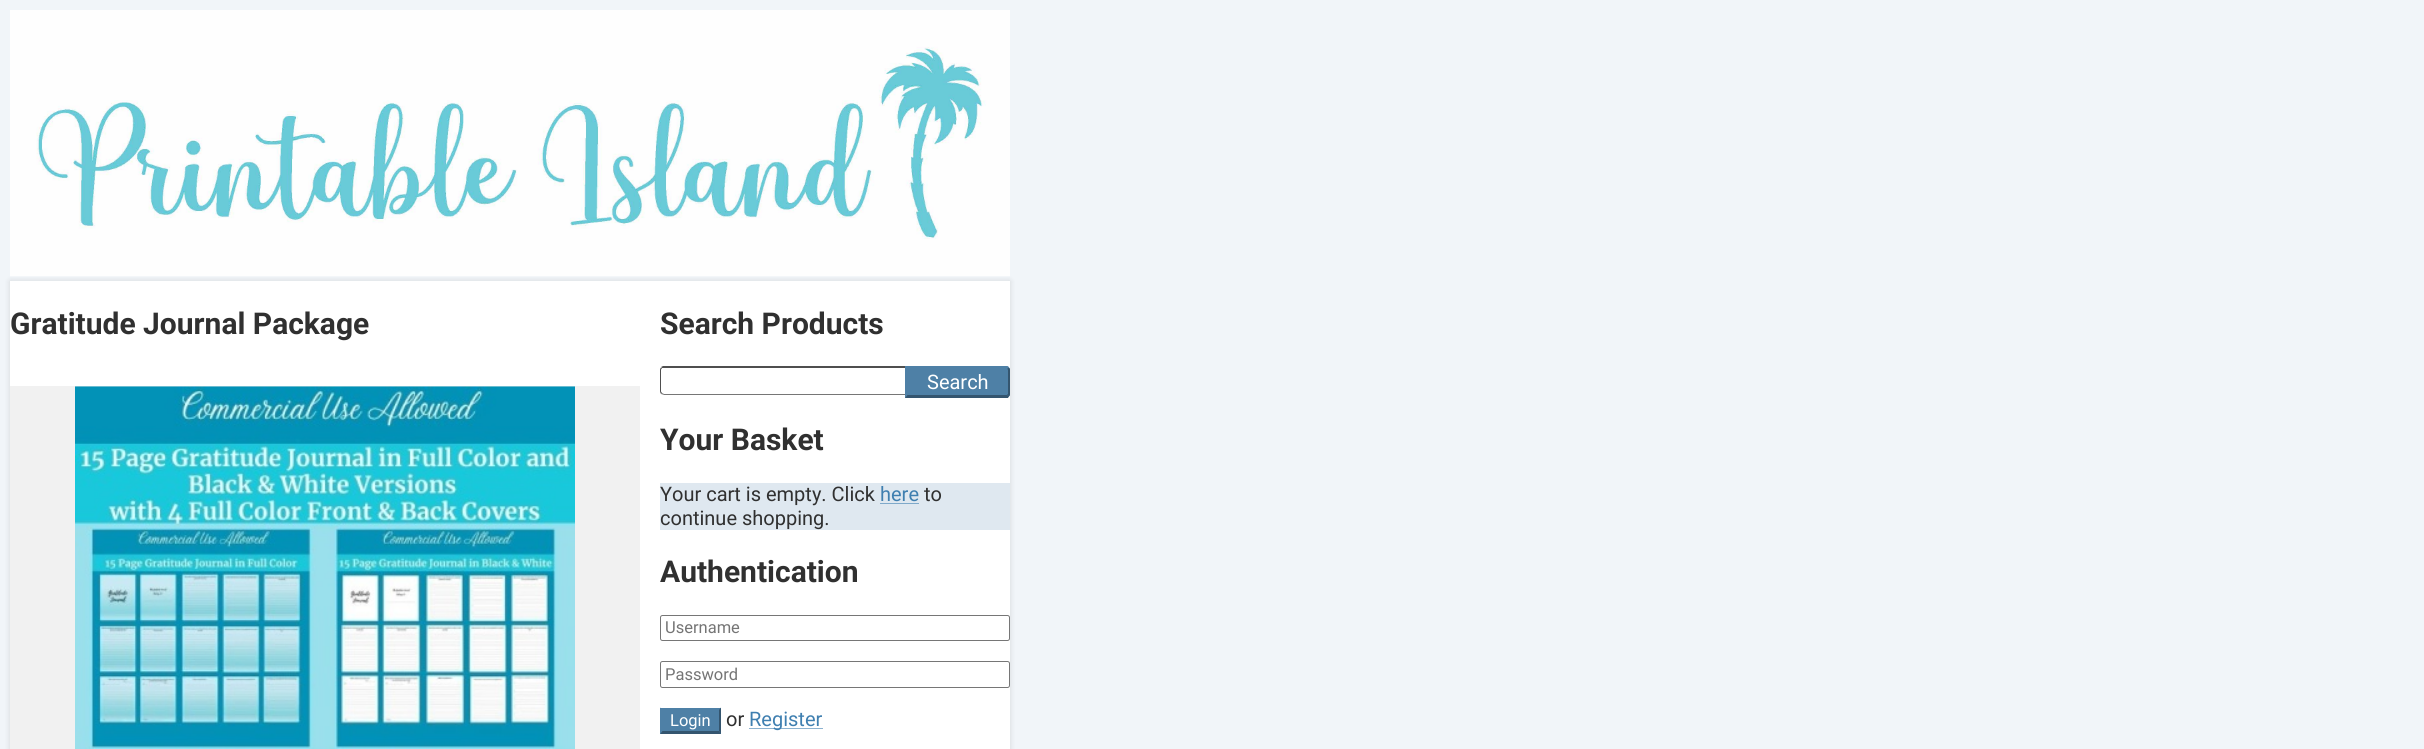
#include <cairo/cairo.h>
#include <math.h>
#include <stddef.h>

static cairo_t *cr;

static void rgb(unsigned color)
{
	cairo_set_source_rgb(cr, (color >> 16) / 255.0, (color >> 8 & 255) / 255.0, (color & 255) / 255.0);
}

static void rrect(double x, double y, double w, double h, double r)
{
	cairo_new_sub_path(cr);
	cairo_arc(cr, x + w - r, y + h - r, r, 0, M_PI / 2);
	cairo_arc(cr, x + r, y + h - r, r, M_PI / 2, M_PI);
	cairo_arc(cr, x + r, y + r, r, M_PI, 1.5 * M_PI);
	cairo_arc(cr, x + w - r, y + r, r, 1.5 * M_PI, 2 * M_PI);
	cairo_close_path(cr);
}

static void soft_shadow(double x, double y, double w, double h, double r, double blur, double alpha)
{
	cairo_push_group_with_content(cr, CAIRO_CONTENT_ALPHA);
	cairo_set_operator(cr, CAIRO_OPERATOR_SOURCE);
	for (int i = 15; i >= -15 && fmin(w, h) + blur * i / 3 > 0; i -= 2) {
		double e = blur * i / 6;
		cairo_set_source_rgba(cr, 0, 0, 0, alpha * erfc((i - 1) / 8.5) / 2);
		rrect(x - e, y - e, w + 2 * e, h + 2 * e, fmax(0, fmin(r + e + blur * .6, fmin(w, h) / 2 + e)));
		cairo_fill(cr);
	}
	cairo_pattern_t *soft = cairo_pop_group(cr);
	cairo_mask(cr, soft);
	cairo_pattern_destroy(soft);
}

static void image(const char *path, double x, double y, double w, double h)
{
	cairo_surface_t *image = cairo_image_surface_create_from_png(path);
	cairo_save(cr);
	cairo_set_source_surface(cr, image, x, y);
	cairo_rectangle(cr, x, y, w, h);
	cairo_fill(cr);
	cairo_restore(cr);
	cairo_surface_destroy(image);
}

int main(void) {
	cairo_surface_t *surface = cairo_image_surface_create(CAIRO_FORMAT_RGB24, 2424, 749);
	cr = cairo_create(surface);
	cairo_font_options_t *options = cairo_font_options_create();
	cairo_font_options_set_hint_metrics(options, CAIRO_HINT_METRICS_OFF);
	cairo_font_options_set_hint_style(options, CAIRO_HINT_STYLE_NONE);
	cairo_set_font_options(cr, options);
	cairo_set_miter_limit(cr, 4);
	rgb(0xf1f5f9);
	cairo_paint(cr);
	rgb(0x000000);
	soft_shadow(10, 281, 1000, 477, 0, 3, 0.13);
	image("img/1.png", 10, 10, 1000, 267);
	rgb(0xffffff);
	cairo_rectangle(cr, 10, 281, 1000, 468);
	cairo_fill(cr);
	rgb(0xf1f1f1);
	cairo_rectangle(cr, 10, 386, 630, 363);
	cairo_fill(cr);
	image("img/2.png", 75, 386, 500, 363);
	rgb(0x4f4f4f);
	cairo_new_path(cr);
	cairo_move_to(cr, 664, 368);
	cairo_line_to(cr, 662, 368);
	cairo_line_to(cr, 661, 367);
	cairo_line_to(cr, 663, 366);
	cairo_line_to(cr, 905, 366);
	cairo_line_to(cr, 905, 368);
	cairo_close_path(cr);
	cairo_fill(cr);
	rgb(0x767676);
	cairo_new_path(cr);
	cairo_move_to(cr, 905, 395);
	cairo_line_to(cr, 905, 394);
	cairo_line_to(cr, 664, 394);
	cairo_line_to(cr, 662, 393);
	cairo_line_to(cr, 661, 394);
	cairo_line_to(cr, 664, 395);
	cairo_close_path(cr);
	cairo_fill(cr);
	rgb(0x4f4f4f);
	cairo_new_path(cr);
	cairo_move_to(cr, 660, 370);
	cairo_line_to(cr, 660, 391);
	cairo_curve_to(cr, 660, 392, 660.5, 393, 661, 394);
	cairo_line_to(cr, 662, 393);
	cairo_line_to(cr, 661, 391.5);
	cairo_line_to(cr, 661, 369.5);
	cairo_line_to(cr, 662, 368.5);
	cairo_line_to(cr, 661, 367.5);
	cairo_curve_to(cr, 660.5, 368, 660, 369, 660, 370);
	cairo_close_path(cr);
	cairo_fill(cr);
	rgb(0x4e80a6);
	cairo_new_path(cr);
	cairo_move_to(cr, 905, 366);
	cairo_line_to(cr, 1006, 366);
	cairo_curve_to(cr, 1008, 366, 1010, 368, 1010, 370);
	cairo_line_to(cr, 1010, 394);
	cairo_curve_to(cr, 1010, 396, 1008, 398, 1006, 398);
	cairo_line_to(cr, 905, 398);
	cairo_close_path(cr);
	cairo_fill(cr);
	cairo_new_path(cr);
	cairo_move_to(cr, 908, 369);
	cairo_line_to(cr, 905, 366);
	cairo_line_to(cr, 1007, 366);
	cairo_line_to(cr, 1009, 367);
	cairo_line_to(cr, 1007, 369);
	cairo_line_to(cr, 1006, 369);
	cairo_close_path(cr);
	cairo_fill(cr);
	rgb(0x34556f);
	cairo_new_path(cr);
	cairo_move_to(cr, 1010, 394);
	cairo_line_to(cr, 1010, 370);
	cairo_curve_to(cr, 1010, 369, 1009.5, 368, 1009, 367.5);
	cairo_line_to(cr, 1007, 369);
	cairo_line_to(cr, 1008, 369.5);
	cairo_line_to(cr, 1008, 394);
	cairo_line_to(cr, 1007, 394.5);
	cairo_line_to(cr, 1009, 396.5);
	cairo_curve_to(cr, 1009.5, 396, 1010, 395, 1010, 394);
	cairo_close_path(cr);
	cairo_fill(cr);
	cairo_new_path(cr);
	cairo_move_to(cr, 1008, 398);
	cairo_line_to(cr, 905, 398);
	cairo_line_to(cr, 908, 394);
	cairo_line_to(cr, 908, 395);
	cairo_line_to(cr, 1007, 395);
	cairo_line_to(cr, 1009, 396);
	cairo_close_path(cr);
	cairo_fill(cr);
	rgb(0x4e80a6);
	cairo_new_path(cr);
	cairo_move_to(cr, 905, 397.5);
	cairo_line_to(cr, 908, 394.5);
	cairo_line_to(cr, 908, 369);
	cairo_line_to(cr, 905, 366);
	cairo_close_path(cr);
	cairo_fill(cr);
	rgb(0xdfe8f0);
	cairo_rectangle(cr, 660, 483, 350, 47);
	cairo_fill(cr);
	rgb(0x7fa9ca);
	cairo_rectangle(cr, 880, 503, 39, 1);
	cairo_fill(cr);
	rrect(660.5, 615.5, 349, 25, 2);
	rgb(0x767676);
	cairo_set_line_width(cr, 1);
	cairo_stroke(cr);
	rrect(660.5, 661.5, 349, 26, 2);
	cairo_stroke(cr);
	rgb(0x4e80a6);
	cairo_rectangle(cr, 660, 708, 61, 26);
	cairo_fill(cr);
	rgb(0x34556f);
	cairo_new_path(cr);
	cairo_move_to(cr, 721, 707.5);
	cairo_line_to(cr, 721, 734);
	cairo_line_to(cr, 719, 731);
	cairo_line_to(cr, 719, 710);
	cairo_close_path(cr);
	cairo_fill(cr);
	cairo_new_path(cr);
	cairo_move_to(cr, 721, 734);
	cairo_line_to(cr, 660, 734);
	cairo_line_to(cr, 662, 731);
	cairo_line_to(cr, 719, 731);
	cairo_close_path(cr);
	cairo_fill(cr);
	rgb(0x4e80a6);
	cairo_new_path(cr);
	cairo_move_to(cr, 660, 734);
	cairo_line_to(cr, 660, 707.5);
	cairo_line_to(cr, 662.5, 710);
	cairo_line_to(cr, 662.5, 731);
	cairo_close_path(cr);
	cairo_fill(cr);
	rgb(0x8cb2d0);
	cairo_rectangle(cr, 749, 728, 74, 1);
	cairo_fill(cr);
	cairo_select_font_face(cr, "Roboto", CAIRO_FONT_SLANT_NORMAL, CAIRO_FONT_WEIGHT_BOLD);
	cairo_set_font_size(cr, 30);
	rgb(0x303030);
	cairo_move_to(cr, 10, 334);
	cairo_show_text(cr, "Gratitude Journal Package");
	cairo_move_to(cr, 660, 334);
	cairo_show_text(cr, "Search Products");
	cairo_select_font_face(cr, "Roboto", CAIRO_FONT_SLANT_NORMAL, CAIRO_FONT_WEIGHT_NORMAL);
	cairo_set_font_size(cr, 20);
	rgb(0xffffff);
	cairo_move_to(cr, 927, 389);
	cairo_show_text(cr, "Search");
	cairo_select_font_face(cr, "Roboto", CAIRO_FONT_SLANT_NORMAL, CAIRO_FONT_WEIGHT_BOLD);
	cairo_set_font_size(cr, 30);
	rgb(0x303030);
	cairo_move_to(cr, 660, 450);
	cairo_show_text(cr, "Your Basket");
	cairo_select_font_face(cr, "Roboto", CAIRO_FONT_SLANT_NORMAL, CAIRO_FONT_WEIGHT_NORMAL);
	cairo_set_font_size(cr, 20);
	cairo_move_to(cr, 660, 501);
	cairo_show_text(cr, "Your cart is empty. Click");
	rgb(0x3f7fb0);
	cairo_move_to(cr, 880, 501);
	cairo_show_text(cr, "here");
	rgb(0x303030);
	cairo_move_to(cr, 924, 501);
	cairo_show_text(cr, "to");
	cairo_move_to(cr, 660, 525);
	cairo_show_text(cr, "continue shopping.");
	cairo_select_font_face(cr, "Roboto", CAIRO_FONT_SLANT_NORMAL, CAIRO_FONT_WEIGHT_BOLD);
	cairo_set_font_size(cr, 30);
	cairo_move_to(cr, 660, 582);
	cairo_show_text(cr, "Authentication");
	cairo_select_font_face(cr, "Roboto", CAIRO_FONT_SLANT_NORMAL, CAIRO_FONT_WEIGHT_NORMAL);
	cairo_set_font_size(cr, 16.5);
	rgb(0x757575);
	cairo_move_to(cr, 665, 633);
	cairo_show_text(cr, "Username");
	cairo_move_to(cr, 665, 680);
	cairo_show_text(cr, "Password");
	rgb(0xffffff);
	cairo_move_to(cr, 670, 726);
	cairo_show_text(cr, "Login");
	cairo_set_font_size(cr, 20);
	rgb(0x303030);
	cairo_move_to(cr, 726, 726);
	cairo_show_text(cr, "or");
	rgb(0x3f7fb0);
	cairo_move_to(cr, 749, 726);
	cairo_show_text(cr, "Register");
	cairo_surface_write_to_png(surface, "page.png");
	cairo_font_options_destroy(options);
	cairo_destroy(cr);
	cairo_surface_destroy(surface);
	return 0;
}
